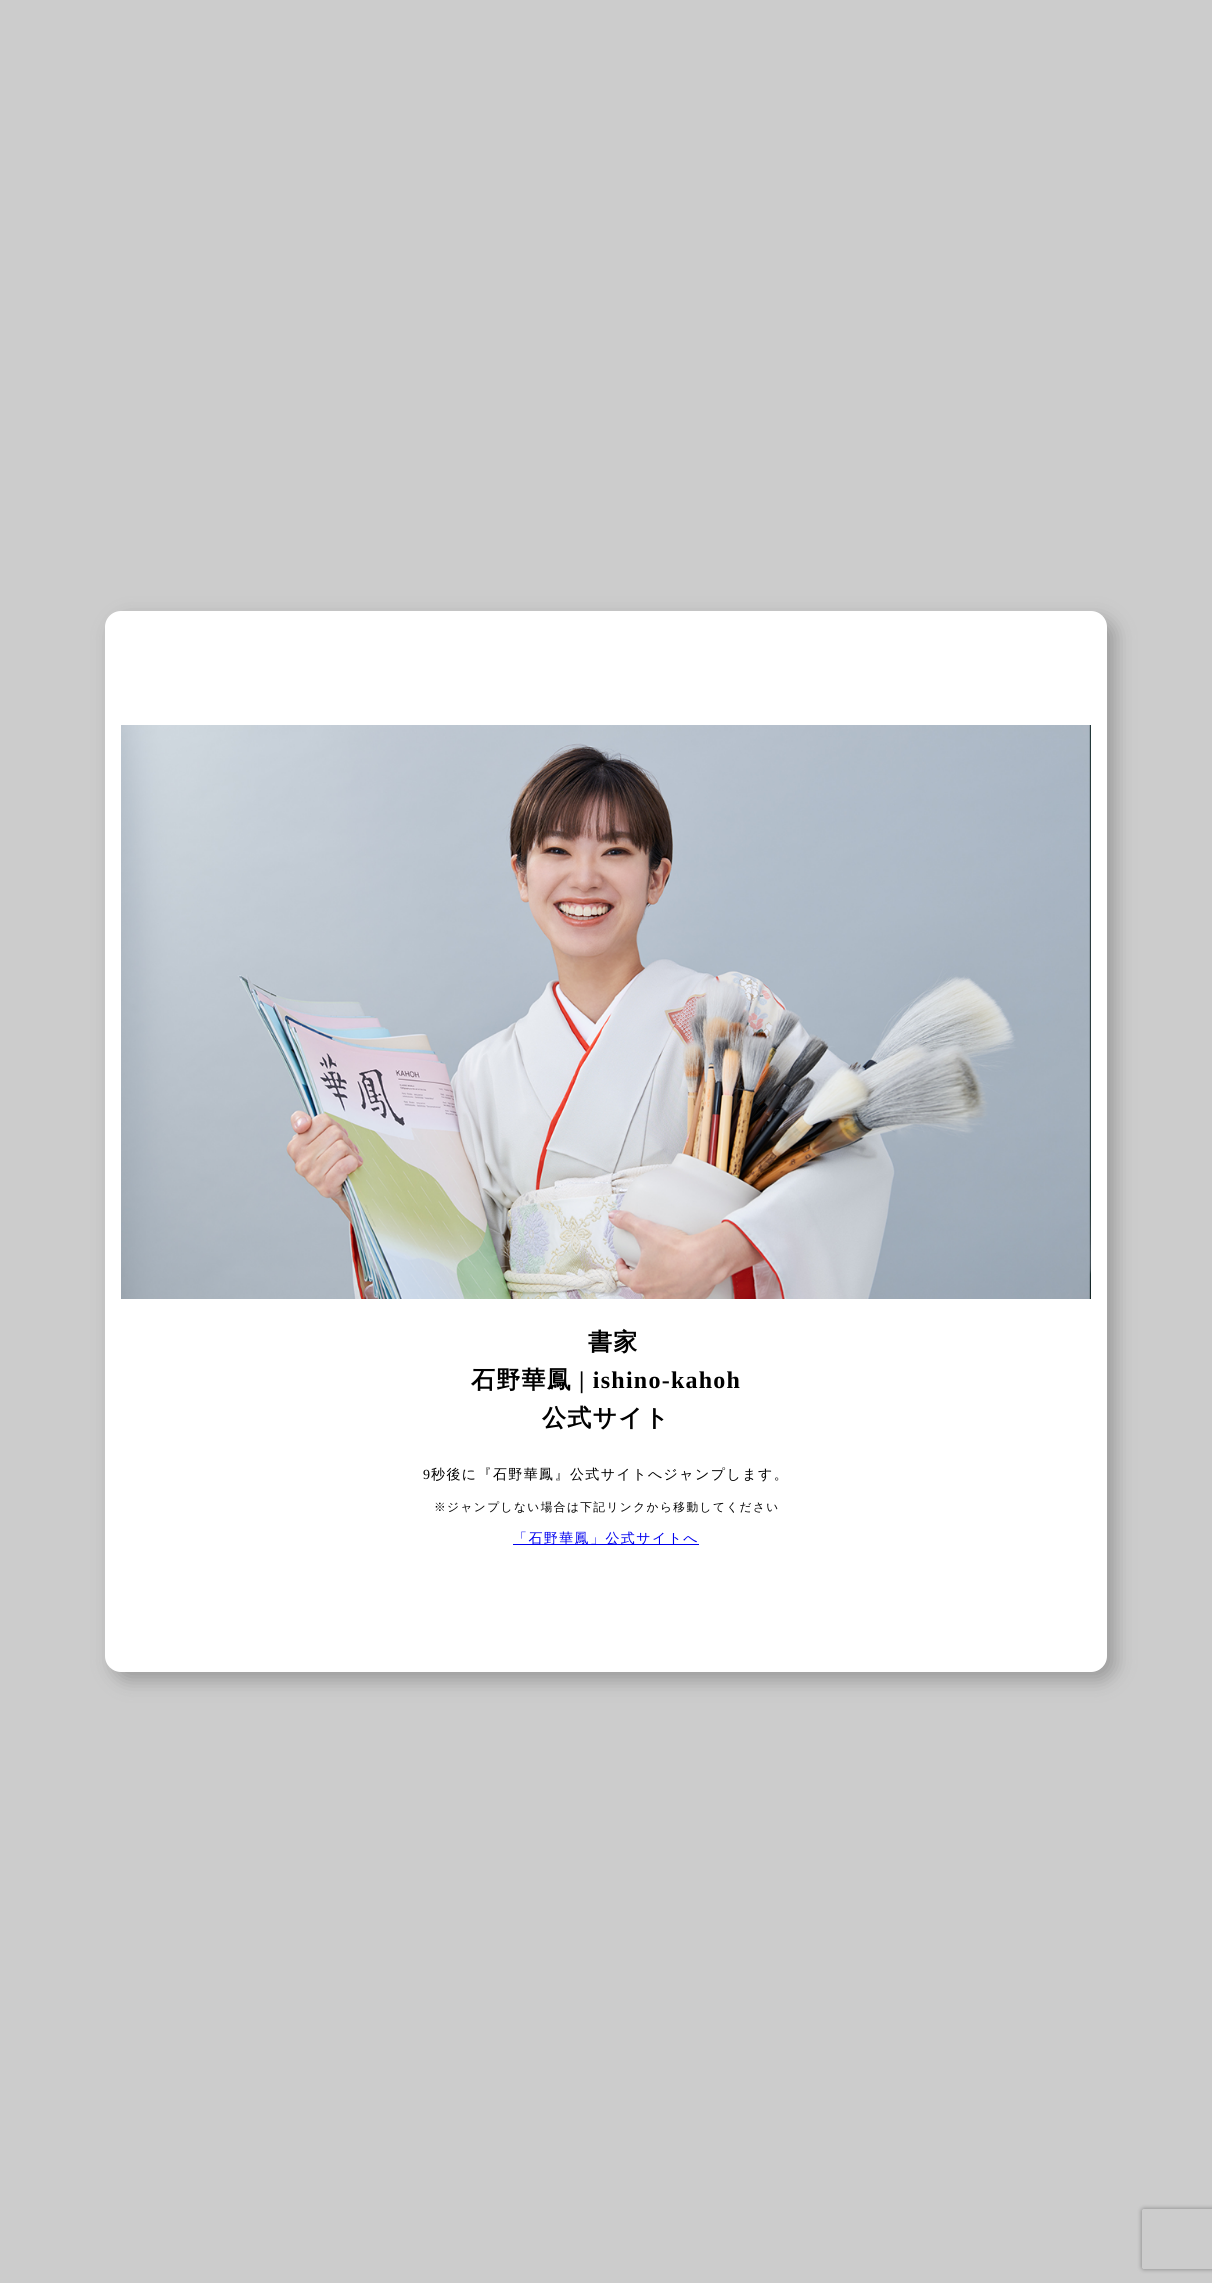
#include <cairo/cairo.h>
#include <math.h>
#include <stddef.h>

static cairo_t *cr;

static void rgb(unsigned color)
{
	cairo_set_source_rgb(cr, (color >> 16) / 255.0, (color >> 8 & 255) / 255.0, (color & 255) / 255.0);
}

static void tracked(double x, double y, const char *s, double letter, double word)
{
	cairo_move_to(cr, x, y);
	while (*s) {
		char ch[5] = {0};
		int n = 0;
		do ch[n++] = *s++; while ((*s & 0xC0) == 0x80);
		cairo_show_text(cr, ch);
		cairo_rel_move_to(cr, letter + word * (*ch == ' '), 0);
	}
}

static void rrect(double x, double y, double w, double h, double r)
{
	cairo_new_sub_path(cr);
	cairo_arc(cr, x + w - r, y + h - r, r, 0, M_PI / 2);
	cairo_arc(cr, x + r, y + h - r, r, M_PI / 2, M_PI);
	cairo_arc(cr, x + r, y + r, r, M_PI, 1.5 * M_PI);
	cairo_arc(cr, x + w - r, y + r, r, 1.5 * M_PI, 2 * M_PI);
	cairo_close_path(cr);
}

static void soft_shadow(double x, double y, double w, double h, double r, double blur, double alpha)
{
	cairo_push_group_with_content(cr, CAIRO_CONTENT_ALPHA);
	cairo_set_operator(cr, CAIRO_OPERATOR_SOURCE);
	for (int i = 15; i >= -15 && fmin(w, h) + blur * i / 3 > 0; i -= 2) {
		double e = blur * i / 6;
		cairo_set_source_rgba(cr, 0, 0, 0, alpha * erfc((i - 1) / 8.5) / 2);
		rrect(x - e, y - e, w + 2 * e, h + 2 * e, fmax(0, fmin(r + e + blur * .6, fmin(w, h) / 2 + e)));
		cairo_fill(cr);
	}
	cairo_pattern_t *soft = cairo_pop_group(cr);
	cairo_mask(cr, soft);
	cairo_pattern_destroy(soft);
}

static void image(const char *path, double x, double y, double w, double h)
{
	cairo_surface_t *image = cairo_image_surface_create_from_png(path);
	cairo_save(cr);
	cairo_set_source_surface(cr, image, x, y);
	cairo_rectangle(cr, x, y, w, h);
	cairo_fill(cr);
	cairo_restore(cr);
	cairo_surface_destroy(image);
}

int main(void) {
	cairo_surface_t *surface = cairo_image_surface_create(CAIRO_FORMAT_RGB24, 1212, 2283);
	cr = cairo_create(surface);
	cairo_font_options_t *options = cairo_font_options_create();
	cairo_font_options_set_hint_metrics(options, CAIRO_HINT_METRICS_OFF);
	cairo_font_options_set_hint_style(options, CAIRO_HINT_STYLE_NONE);
	cairo_set_font_options(cr, options);
	cairo_set_miter_limit(cr, 4);
	rgb(0xcccccc);
	cairo_paint(cr);
	rgb(0x999999);
	soft_shadow(113, 619, 1002, 1061, 16, 9.5, 1);
	rgb(0xffffff);
	rrect(105, 611, 1002, 1061, 16);
	cairo_fill(cr);
	image("img/1.png", 121, 725, 970, 574);
	rgb(0x0000ee);
	cairo_rectangle(cr, 513, 1544, 186, 1);
	cairo_fill(cr);
	cairo_save(cr);
	cairo_set_fill_rule(cr, CAIRO_FILL_RULE_EVEN_ODD);
	cairo_new_path(cr);
	cairo_move_to(cr, 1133, 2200);
	cairo_line_to(cr, 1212, 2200);
	cairo_line_to(cr, 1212, 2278);
	cairo_line_to(cr, 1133, 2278);
	cairo_close_path(cr);
	cairo_move_to(cr, 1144, 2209);
	cairo_line_to(cr, 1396, 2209);
	cairo_curve_to(cr, 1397, 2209, 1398, 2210, 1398, 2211);
	cairo_line_to(cr, 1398, 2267);
	cairo_curve_to(cr, 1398, 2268, 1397, 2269, 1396, 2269);
	cairo_line_to(cr, 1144, 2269);
	cairo_curve_to(cr, 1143, 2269, 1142, 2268, 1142, 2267);
	cairo_line_to(cr, 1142, 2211);
	cairo_curve_to(cr, 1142, 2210, 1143, 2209, 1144, 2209);
	cairo_close_path(cr);
	cairo_clip(cr);
	rgb(0x808080);
	soft_shadow(1142, 2209, 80, 60, 2, 2.5, 1);
	cairo_restore(cr);
	cairo_select_font_face(cr, "WenQuanYi Zen Hei", CAIRO_FONT_SLANT_NORMAL, CAIRO_FONT_WEIGHT_BOLD);
	cairo_set_font_size(cr, 24);
	rgb(0x000000);
	tracked(588, 1350, "書家", 1.25, 0);
	tracked(471, 1388, "石野華鳳", 1.25, 0);
	cairo_select_font_face(cr, "Liberation Serif", CAIRO_FONT_SLANT_NORMAL, CAIRO_FONT_WEIGHT_BOLD);
	tracked(579, 1388, "| ishino-kahoh", 1.25, 0);
	cairo_select_font_face(cr, "WenQuanYi Zen Hei", CAIRO_FONT_SLANT_NORMAL, CAIRO_FONT_WEIGHT_BOLD);
	tracked(542, 1426, "公式サイト", 1.25, 0);
	cairo_select_font_face(cr, "Liberation Serif", CAIRO_FONT_SLANT_NORMAL, CAIRO_FONT_WEIGHT_NORMAL);
	cairo_set_font_size(cr, 14);
	tracked(423, 1479, "9", 1.4, 0);
	cairo_select_font_face(cr, "WenQuanYi Zen Hei Medium", CAIRO_FONT_SLANT_NORMAL, CAIRO_FONT_WEIGHT_NORMAL);
	tracked(431, 1479, "秒後に『石野華鳳』公式サイトへジャンプします。", 1.4, 0);
	cairo_set_font_size(cr, 11.7);
	tracked(434, 1511, "※ジャンプしない場合は下記リンクから移動してください", 1.4, 0);
	cairo_set_font_size(cr, 14);
	rgb(0x0000ee);
	tracked(513, 1543, "「石野華鳳」公式サイトへ", 1.4, 0);
	cairo_surface_write_to_png(surface, "page.png");
	cairo_font_options_destroy(options);
	cairo_destroy(cr);
	cairo_surface_destroy(surface);
	return 0;
}
